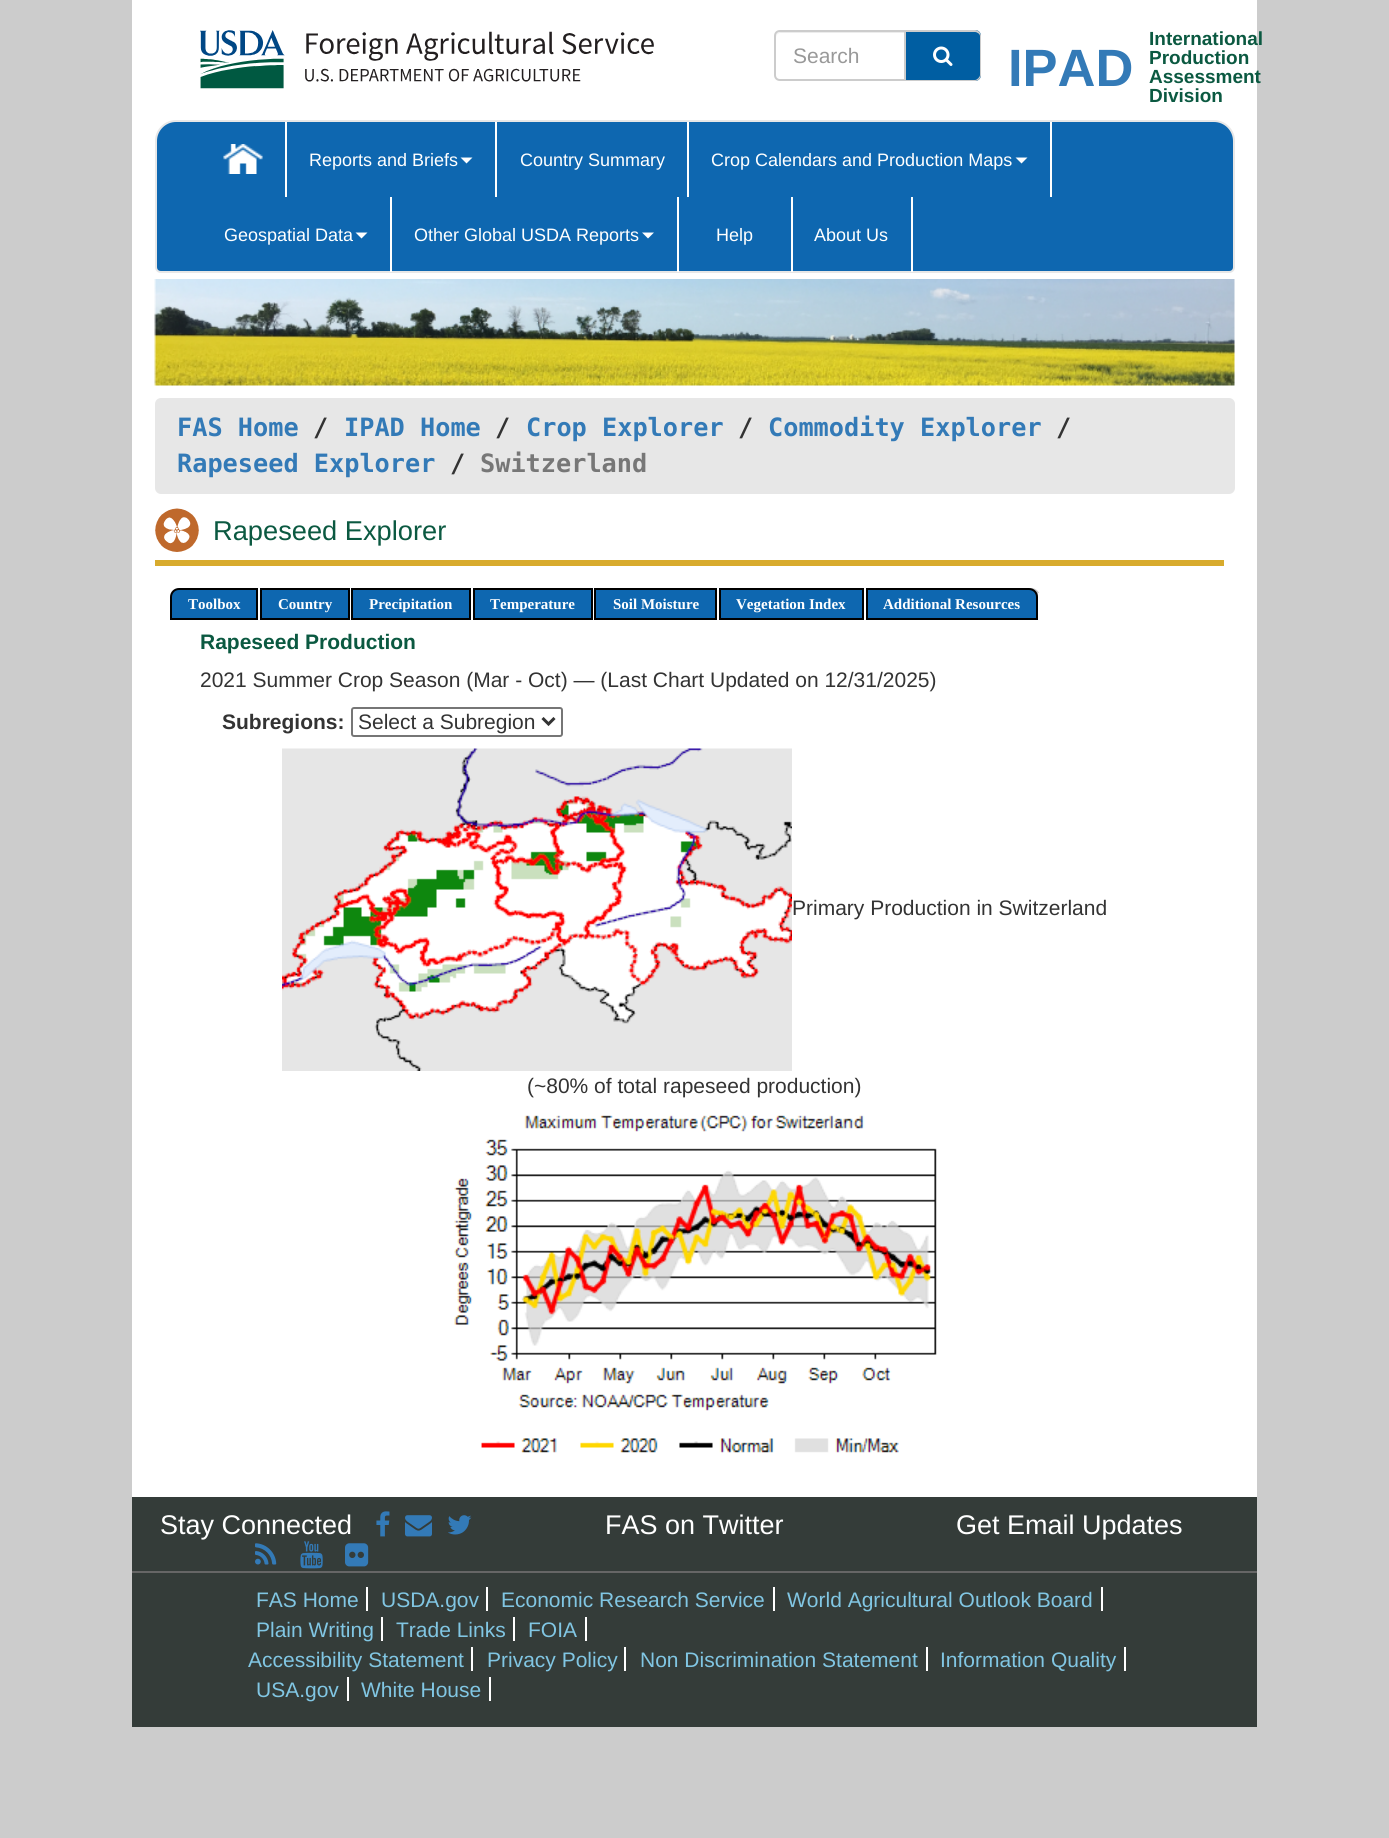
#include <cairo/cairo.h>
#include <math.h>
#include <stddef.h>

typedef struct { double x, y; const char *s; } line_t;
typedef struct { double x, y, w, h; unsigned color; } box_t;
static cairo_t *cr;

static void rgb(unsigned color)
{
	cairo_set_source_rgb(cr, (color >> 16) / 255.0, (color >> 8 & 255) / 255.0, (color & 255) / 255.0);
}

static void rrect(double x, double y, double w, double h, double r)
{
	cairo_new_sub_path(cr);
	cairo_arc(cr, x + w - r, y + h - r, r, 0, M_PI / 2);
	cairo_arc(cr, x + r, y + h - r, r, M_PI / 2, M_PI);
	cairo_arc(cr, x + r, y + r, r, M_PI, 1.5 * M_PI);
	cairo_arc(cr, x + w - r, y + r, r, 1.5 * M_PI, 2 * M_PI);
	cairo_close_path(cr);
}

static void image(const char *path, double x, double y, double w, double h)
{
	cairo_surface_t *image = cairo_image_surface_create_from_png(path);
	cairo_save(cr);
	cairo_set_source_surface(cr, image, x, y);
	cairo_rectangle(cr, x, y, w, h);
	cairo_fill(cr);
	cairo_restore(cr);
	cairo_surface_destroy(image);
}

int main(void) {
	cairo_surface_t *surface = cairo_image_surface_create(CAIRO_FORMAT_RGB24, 1389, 1838);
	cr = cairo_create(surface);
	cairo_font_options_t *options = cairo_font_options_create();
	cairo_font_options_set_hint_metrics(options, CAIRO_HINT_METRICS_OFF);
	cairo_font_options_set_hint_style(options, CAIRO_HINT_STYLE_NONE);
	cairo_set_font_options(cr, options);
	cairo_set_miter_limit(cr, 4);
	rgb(0xcccccc);
	cairo_paint(cr);
	rgb(0xffffff);
	cairo_rectangle(cr, 132, 0, 1125, 1497);
	cairo_fill(cr);
	image("img/1.png", 200, 30, 454, 59);
	rgb(0xececec);
	cairo_new_path(cr);
	cairo_move_to(cr, 780, 33);
	cairo_line_to(cr, 904, 33);
	cairo_line_to(cr, 904, 80);
	cairo_line_to(cr, 905, 80);
	cairo_line_to(cr, 905, 32);
	cairo_line_to(cr, 781, 32);
	cairo_curve_to(cr, 778, 32, 776, 34, 776, 37);
	cairo_line_to(cr, 776, 38);
	cairo_curve_to(cr, 776, 35, 778, 33, 780, 33);
	cairo_close_path(cr);
	cairo_fill(cr);
	cairo_new_path(cr);
	cairo_move_to(cr, 780, 31);
	cairo_line_to(cr, 905, 31);
	cairo_line_to(cr, 905, 80);
	cairo_line_to(cr, 780, 80);
	cairo_curve_to(cr, 777, 80, 775, 78, 775, 75);
	cairo_line_to(cr, 775, 36);
	cairo_curve_to(cr, 775, 33, 777, 31, 780, 31);
	cairo_close_path(cr);
	rgb(0xcccccc);
	cairo_stroke(cr);
	rgb(0x005ea2);
	cairo_new_path(cr);
	cairo_move_to(cr, 906, 30);
	cairo_line_to(cr, 975, 30);
	cairo_curve_to(cr, 978.5, 30, 981, 32.5, 981, 36);
	cairo_line_to(cr, 981, 75);
	cairo_curve_to(cr, 981, 78.5, 978.5, 81, 975, 81);
	cairo_line_to(cr, 906, 81);
	cairo_close_path(cr);
	cairo_fill(cr);
	rgb(0xcccccc);
	cairo_set_fill_rule(cr, CAIRO_FILL_RULE_EVEN_ODD);
	cairo_new_path(cr);
	cairo_move_to(cr, 906, 30);
	cairo_line_to(cr, 975, 30);
	cairo_curve_to(cr, 978, 30, 981, 33, 981, 36);
	cairo_line_to(cr, 981, 75);
	cairo_curve_to(cr, 981, 78, 978, 81, 975, 81);
	cairo_line_to(cr, 906, 81);
	cairo_close_path(cr);
	cairo_move_to(cr, 906, 32);
	cairo_line_to(cr, 975, 32);
	cairo_curve_to(cr, 977, 32, 980, 34, 980, 36);
	cairo_line_to(cr, 980, 75);
	cairo_curve_to(cr, 980, 77, 977, 80, 975, 80);
	cairo_line_to(cr, 906, 80);
	cairo_close_path(cr);
	cairo_fill(cr);
	image("img/2.png", 933, 46, 20, 20);
	rgb(0x0e67b0);
	cairo_new_path(cr);
	cairo_move_to(cr, 176, 121);
	cairo_line_to(cr, 1214, 121);
	cairo_curve_to(cr, 1225, 121, 1234, 130, 1234, 141);
	cairo_line_to(cr, 1234, 267);
	cairo_curve_to(cr, 1234, 270, 1232, 272, 1229, 272);
	cairo_line_to(cr, 161, 272);
	cairo_curve_to(cr, 158, 272, 156, 270, 156, 267);
	cairo_line_to(cr, 156, 141);
	cairo_curve_to(cr, 156, 130, 165, 121, 176, 121);
	cairo_close_path(cr);
	cairo_fill_preserve(cr);
	rgb(0xe7e7e7);
	cairo_stroke(cr);
	rgb(0xffffff);
	cairo_rectangle(cr, 285, 122, 2, 75);
	cairo_fill(cr);
	image("img/3.png", 223, 144, 40, 30);
	cairo_rectangle(cr, 495, 122, 2, 75);
	cairo_fill(cr);
	cairo_set_fill_rule(cr, CAIRO_FILL_RULE_WINDING);
	cairo_new_path(cr);
	cairo_move_to(cr, 460.5, 157.5);
	cairo_line_to(cr, 472.5, 157.5);
	cairo_line_to(cr, 466.5, 163.5);
	cairo_close_path(cr);
	cairo_fill(cr);
	cairo_rectangle(cr, 687, 122, 2, 75);
	cairo_fill(cr);
	cairo_rectangle(cr, 1050, 122, 2, 75);
	cairo_fill(cr);
	cairo_new_path(cr);
	cairo_move_to(cr, 1015.5, 157.5);
	cairo_line_to(cr, 1027.5, 157.5);
	cairo_line_to(cr, 1021.5, 163.5);
	cairo_close_path(cr);
	cairo_fill(cr);
	cairo_rectangle(cr, 390, 197, 2, 75);
	cairo_fill(cr);
	cairo_new_path(cr);
	cairo_move_to(cr, 355.5, 232.5);
	cairo_line_to(cr, 367.5, 232.5);
	cairo_line_to(cr, 361.5, 238.5);
	cairo_close_path(cr);
	cairo_fill(cr);
	cairo_rectangle(cr, 677, 197, 2, 75);
	cairo_fill(cr);
	cairo_new_path(cr);
	cairo_move_to(cr, 642, 232.5);
	cairo_line_to(cr, 654, 232.5);
	cairo_line_to(cr, 648, 238.5);
	cairo_close_path(cr);
	cairo_fill(cr);
	cairo_rectangle(cr, 791, 197, 2, 75);
	cairo_fill(cr);
	cairo_rectangle(cr, 911, 197, 2, 75);
	cairo_fill(cr);
	image("img/4.png", 154, 279, 1081, 107);
	rgb(0xe7e7e7);
	rrect(155, 398, 1080, 96, 6);
	cairo_fill(cr);
	rgb(0xd8ab2d);
	cairo_rectangle(cr, 155, 560, 1069, 6);
	cairo_fill(cr);
	image("img/5.png", 155, 508, 44, 44);
	rgb(0x0e67b0);
	cairo_new_path(cr);
	cairo_move_to(cr, 179, 589);
	cairo_line_to(cr, 257, 589);
	cairo_line_to(cr, 257, 619);
	cairo_line_to(cr, 171, 619);
	cairo_line_to(cr, 171, 597);
	cairo_curve_to(cr, 171, 592.5, 174.5, 589, 179, 589);
	cairo_close_path(cr);
	cairo_fill_preserve(cr);
	rgb(0x000000);
	cairo_stroke(cr);
	rgb(0x0e67b0);
	cairo_rectangle(cr, 261, 589, 88, 30);
	cairo_fill_preserve(cr);
	rgb(0x000000);
	cairo_stroke(cr);
	rgb(0x0e67b0);
	cairo_rectangle(cr, 352, 589, 118, 30);
	cairo_fill_preserve(cr);
	rgb(0x000000);
	cairo_stroke(cr);
	rgb(0x0e67b0);
	cairo_rectangle(cr, 474, 589, 118, 30);
	cairo_fill_preserve(cr);
	rgb(0x000000);
	cairo_stroke(cr);
	rgb(0x0e67b0);
	cairo_rectangle(cr, 595, 589, 121, 30);
	cairo_fill_preserve(cr);
	rgb(0x000000);
	cairo_stroke(cr);
	rgb(0x0e67b0);
	cairo_rectangle(cr, 720, 589, 143, 30);
	cairo_fill_preserve(cr);
	rgb(0x000000);
	cairo_stroke(cr);
	rgb(0xc8c8c8);
	cairo_new_path(cr);
	cairo_move_to(cr, 866, 588);
	cairo_line_to(cr, 1031, 588);
	cairo_curve_to(cr, 1036, 588, 1040, 592, 1040, 597);
	cairo_line_to(cr, 1040, 620);
	cairo_line_to(cr, 866, 620);
	cairo_close_path(cr);
	cairo_fill(cr);
	rgb(0xffffff);
	cairo_rectangle(cr, 1038, 593, 2, 27);
	cairo_fill(cr);
	rgb(0x0e67b0);
	cairo_new_path(cr);
	cairo_move_to(cr, 867, 589);
	cairo_line_to(cr, 1029, 589);
	cairo_curve_to(cr, 1033.5, 589, 1037, 592.5, 1037, 597);
	cairo_line_to(cr, 1037, 619);
	cairo_line_to(cr, 867, 619);
	cairo_close_path(cr);
	cairo_fill_preserve(cr);
	rgb(0x000000);
	cairo_stroke(cr);
	rrect(352, 708, 210, 28, 2);
	rgb(0x767676);
	cairo_stroke(cr);
	cairo_new_path(cr);
	cairo_move_to(cr, 542.5, 718);
	cairo_line_to(cr, 548.5, 724);
	cairo_line_to(cr, 554.5, 718);
	rgb(0x333333);
	cairo_set_line_width(cr, 3);
	cairo_stroke(cr);
	image("img/6.png", 282, 748, 510, 323);
	image("img/7.png", 454, 1115, 483, 338);
	rgb(0x343c39);
	cairo_rectangle(cr, 132, 1497, 1125, 74);
	cairo_fill(cr);
	image("img/8.png", 376, 1511, 14, 26);
	image("img/9.png", 405, 1515, 27, 22);
	image("img/10.png", 448, 1515, 24, 20);
	image("img/11.png", 255, 1543, 22, 22);
	image("img/12.png", 300, 1541, 23, 28);
	image("img/13.png", 345, 1543, 24, 24);
	{
		static const box_t items[] = {
			{132, 1573, 1125, 154, 0x343c39},
			{132, 1571, 1125, 2, 0x666666},
			{366, 1587, 2, 24, 0xffffff},
			{486, 1587, 2, 24, 0xffffff},
			{773, 1587, 2, 24, 0xffffff},
			{1101, 1587, 2, 24, 0xffffff},
			{381, 1617, 2, 24, 0xffffff},
			{513, 1617, 2, 24, 0xffffff},
			{585, 1617, 2, 24, 0xffffff},
			{471, 1647, 2, 24, 0xffffff},
			{624, 1647, 2, 24, 0xffffff},
			{926, 1647, 2, 24, 0xffffff},
			{1124, 1647, 2, 24, 0xffffff},
			{347, 1677, 2, 24, 0xffffff},
			{489, 1677, 2, 24, 0xffffff},
		};
		for (size_t i = 0; i < sizeof items / sizeof *items; i++) {
			rgb(items[i].color);
			cairo_rectangle(cr, items[i].x, items[i].y, items[i].w, items[i].h);
			cairo_fill(cr);
		}
	}
	cairo_select_font_face(cr, "Liberation Sans", CAIRO_FONT_SLANT_NORMAL, CAIRO_FONT_WEIGHT_NORMAL);
	cairo_set_font_size(cr, 21);
	rgb(0x999999);
	cairo_move_to(cr, 793, 63);
	cairo_show_text(cr, "Search");
	cairo_select_font_face(cr, "Liberation Sans", CAIRO_FONT_SLANT_NORMAL, CAIRO_FONT_WEIGHT_BOLD);
	cairo_set_font_size(cr, 52.5);
	rgb(0x337ab7);
	cairo_move_to(cr, 1008, 86);
	cairo_show_text(cr, "IPAD");
	cairo_set_font_size(cr, 19);
	rgb(0x0b5941);
	{
		static const line_t items[] = {
			{1149, 45, "International"},
			{1149, 64, "Production"},
			{1149, 83, "Assessment"},
			{1149, 102, "Division"},
		};
		for (size_t i = 0; i < sizeof items / sizeof *items; i++) {
			cairo_move_to(cr, items[i].x, items[i].y);
			cairo_show_text(cr, items[i].s);
		}
	}
	cairo_select_font_face(cr, "Liberation Sans", CAIRO_FONT_SLANT_NORMAL, CAIRO_FONT_WEIGHT_NORMAL);
	cairo_set_font_size(cr, 18);
	rgb(0xffffff);
	{
		static const line_t items[] = {
			{309, 166, "Reports and Briefs"},
			{520, 166, "Country Summary"},
			{711, 166, "Crop Calendars and Production Maps"},
			{224, 241, "Geospatial Data"},
			{414, 241, "Other Global USDA Reports"},
			{716, 241, "Help"},
			{814, 241, "About Us"},
		};
		for (size_t i = 0; i < sizeof items / sizeof *items; i++) {
			cairo_move_to(cr, items[i].x, items[i].y);
			cairo_show_text(cr, items[i].s);
		}
	}
	cairo_select_font_face(cr, "DejaVu Sans Mono", CAIRO_FONT_SLANT_NORMAL, CAIRO_FONT_WEIGHT_BOLD);
	cairo_set_font_size(cr, 25.25);
	rgb(0x337ab7);
	cairo_move_to(cr, 177, 436);
	cairo_show_text(cr, "FAS Home");
	rgb(0x333333);
	cairo_move_to(cr, 313, 436);
	cairo_show_text(cr, "/");
	rgb(0x337ab7);
	cairo_move_to(cr, 344, 436);
	cairo_show_text(cr, "IPAD Home");
	rgb(0x333333);
	cairo_move_to(cr, 495, 436);
	cairo_show_text(cr, "/");
	rgb(0x337ab7);
	cairo_move_to(cr, 526, 436);
	cairo_show_text(cr, "Crop Explorer");
	rgb(0x333333);
	cairo_move_to(cr, 738, 436);
	cairo_show_text(cr, "/");
	rgb(0x337ab7);
	cairo_move_to(cr, 768, 436);
	cairo_show_text(cr, "Commodity Explorer");
	rgb(0x333333);
	cairo_move_to(cr, 1056, 436);
	cairo_show_text(cr, "/");
	rgb(0x337ab7);
	cairo_move_to(cr, 177, 472);
	cairo_show_text(cr, "Rapeseed Explorer");
	rgb(0x333333);
	cairo_move_to(cr, 450, 472);
	cairo_show_text(cr, "/");
	rgb(0x777777);
	cairo_move_to(cr, 480, 472);
	cairo_show_text(cr, "Switzerland");
	cairo_select_font_face(cr, "Liberation Sans", CAIRO_FONT_SLANT_NORMAL, CAIRO_FONT_WEIGHT_NORMAL);
	cairo_set_font_size(cr, 27.25);
	rgb(0x0b5941);
	cairo_move_to(cr, 213, 540);
	cairo_show_text(cr, "Rapeseed Explorer");
	cairo_select_font_face(cr, "Liberation Serif", CAIRO_FONT_SLANT_NORMAL, CAIRO_FONT_WEIGHT_BOLD);
	cairo_set_font_size(cr, 15);
	rgb(0xffffff);
	{
		static const line_t items[] = {
			{188, 609, "Toolbox"},
			{278, 609, "Country"},
			{369, 609, "Precipitation"},
			{490, 609, "Temperature"},
			{613, 609, "Soil Moisture"},
			{736, 609, "Vegetation Index"},
			{883, 609, "Additional Resources"},
		};
		for (size_t i = 0; i < sizeof items / sizeof *items; i++) {
			cairo_move_to(cr, items[i].x, items[i].y);
			cairo_show_text(cr, items[i].s);
		}
	}
	cairo_select_font_face(cr, "Liberation Sans", CAIRO_FONT_SLANT_NORMAL, CAIRO_FONT_WEIGHT_BOLD);
	cairo_set_font_size(cr, 21);
	rgb(0x0b5941);
	cairo_move_to(cr, 200, 649);
	cairo_show_text(cr, "Rapeseed Production");
	cairo_select_font_face(cr, "Liberation Sans", CAIRO_FONT_SLANT_NORMAL, CAIRO_FONT_WEIGHT_NORMAL);
	rgb(0x333333);
	cairo_move_to(cr, 200, 687);
	cairo_show_text(cr, "2021 Summer Crop Season (Mar - Oct) — (Last Chart Updated on 12/31/2025)");
	cairo_select_font_face(cr, "Liberation Sans", CAIRO_FONT_SLANT_NORMAL, CAIRO_FONT_WEIGHT_BOLD);
	cairo_move_to(cr, 222, 729);
	cairo_show_text(cr, "Subregions:");
	cairo_select_font_face(cr, "Liberation Sans", CAIRO_FONT_SLANT_NORMAL, CAIRO_FONT_WEIGHT_NORMAL);
	{
		static const line_t items[] = {
			{358, 729, "Select a Subregion"},
			{792, 915, "Primary Production in Switzerland"},
			{527, 1093, "(~80% of total rapeseed production)"},
		};
		for (size_t i = 0; i < sizeof items / sizeof *items; i++) {
			cairo_move_to(cr, items[i].x, items[i].y);
			cairo_show_text(cr, items[i].s);
		}
	}
	cairo_set_font_size(cr, 27);
	rgb(0xffffff);
	{
		static const line_t items[] = {
			{160, 1534, "Stay Connected"},
			{605, 1534, "FAS on Twitter"},
			{956, 1534, "Get Email Updates"},
		};
		for (size_t i = 0; i < sizeof items / sizeof *items; i++) {
			cairo_move_to(cr, items[i].x, items[i].y);
			cairo_show_text(cr, items[i].s);
		}
	}
	cairo_set_font_size(cr, 21);
	rgb(0x81c6e3);
	{
		static const line_t items[] = {
			{256, 1607, "FAS Home"},
			{381, 1607, "USDA.gov"},
			{501, 1607, "Economic Research Service"},
			{787, 1607, "World Agricultural Outlook Board"},
			{256, 1637, "Plain Writing"},
			{396, 1637, "Trade Links"},
			{528, 1637, "FOIA"},
			{248, 1667, "Accessibility Statement"},
			{487, 1667, "Privacy Policy"},
			{640, 1667, "Non Discrimination Statement"},
			{940, 1667, "Information Quality"},
			{256, 1697, "USA.gov"},
			{361, 1697, "White House"},
		};
		for (size_t i = 0; i < sizeof items / sizeof *items; i++) {
			cairo_move_to(cr, items[i].x, items[i].y);
			cairo_show_text(cr, items[i].s);
		}
	}
	cairo_surface_write_to_png(surface, "page.png");
	cairo_font_options_destroy(options);
	cairo_destroy(cr);
	cairo_surface_destroy(surface);
	return 0;
}
